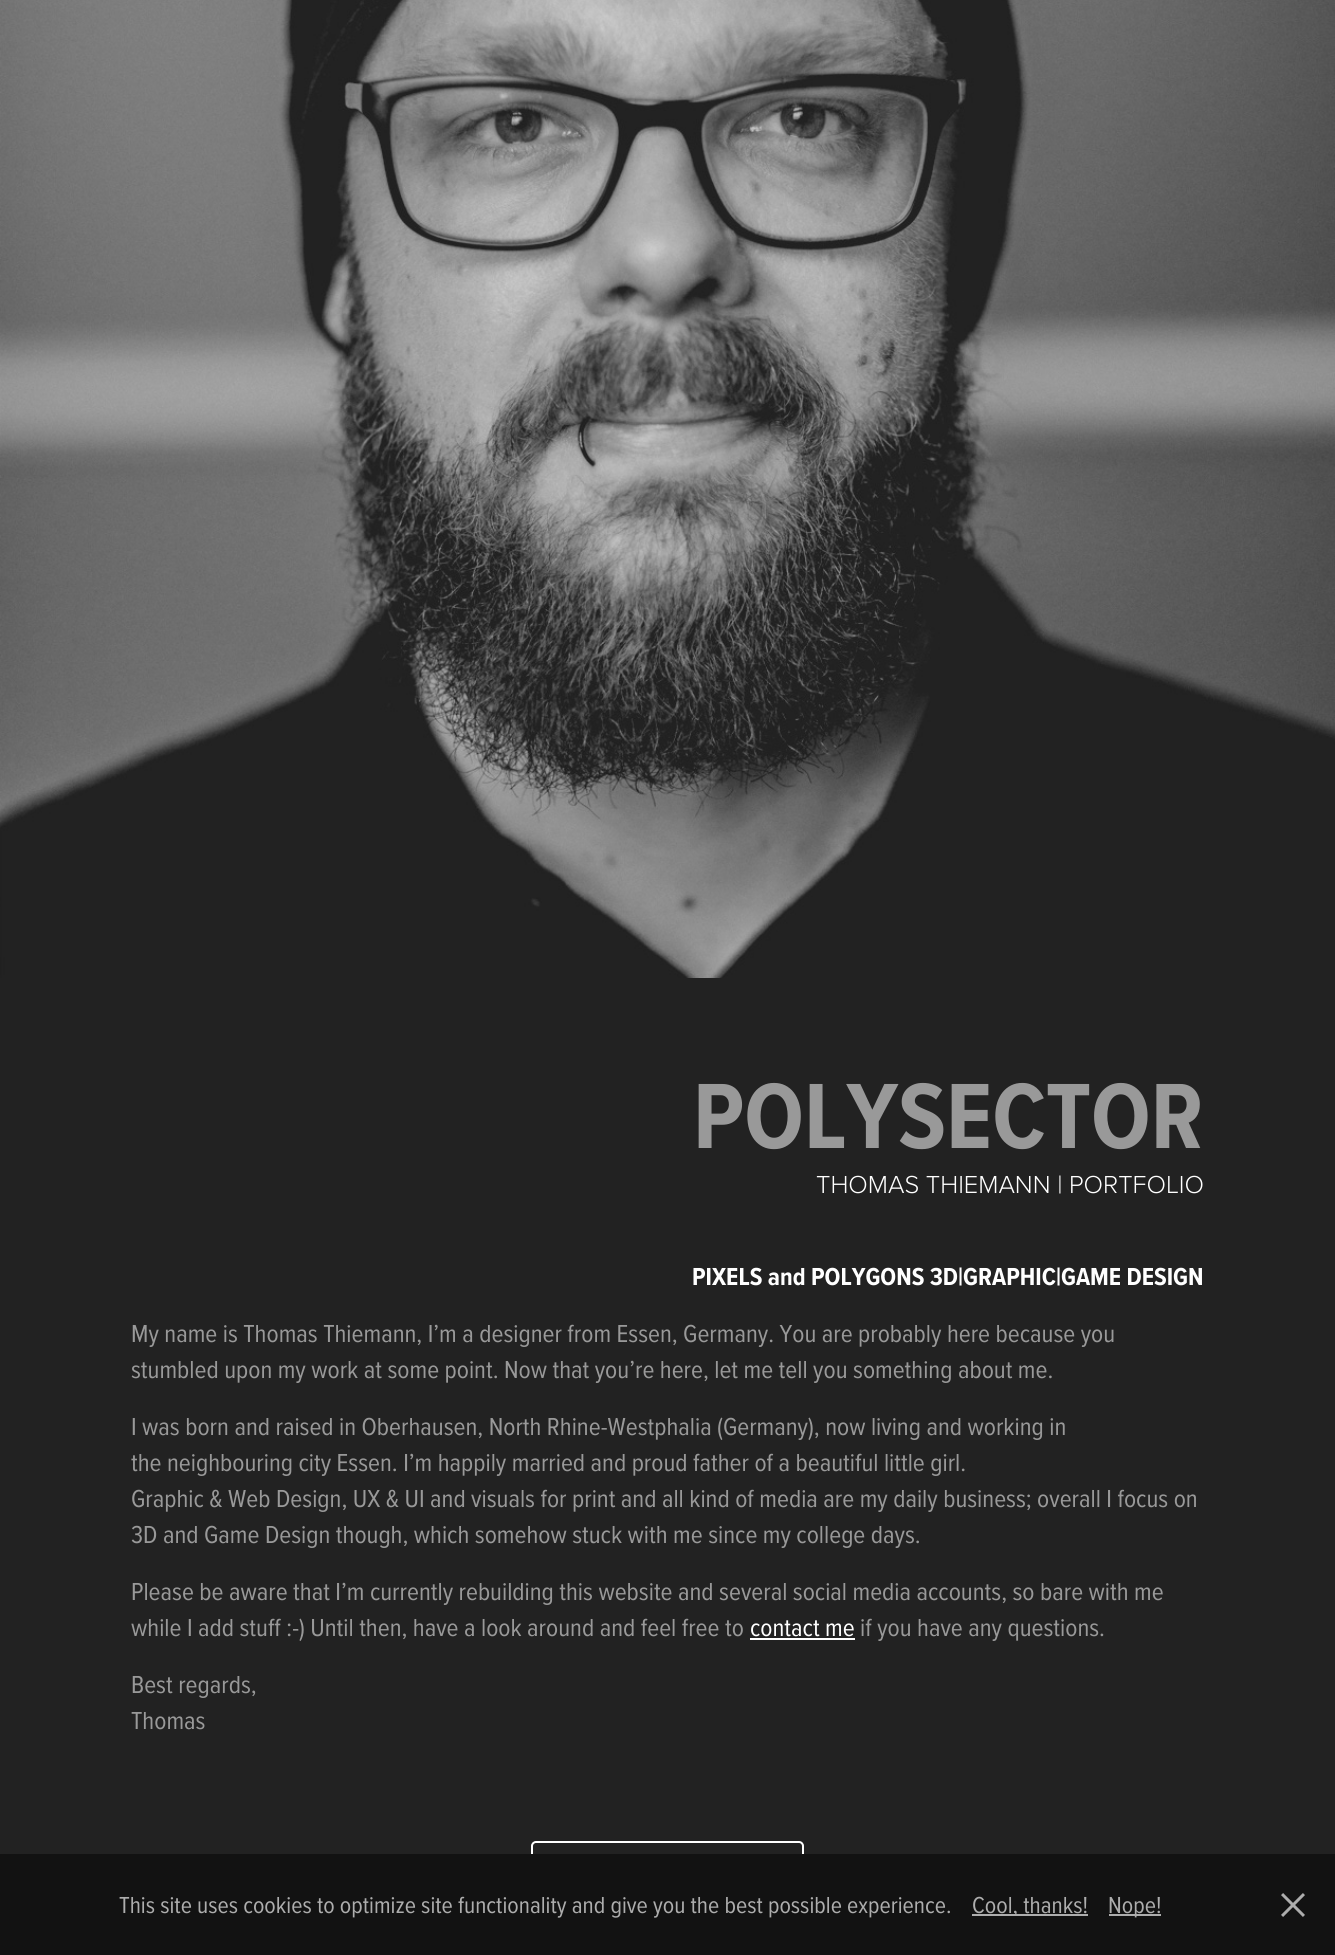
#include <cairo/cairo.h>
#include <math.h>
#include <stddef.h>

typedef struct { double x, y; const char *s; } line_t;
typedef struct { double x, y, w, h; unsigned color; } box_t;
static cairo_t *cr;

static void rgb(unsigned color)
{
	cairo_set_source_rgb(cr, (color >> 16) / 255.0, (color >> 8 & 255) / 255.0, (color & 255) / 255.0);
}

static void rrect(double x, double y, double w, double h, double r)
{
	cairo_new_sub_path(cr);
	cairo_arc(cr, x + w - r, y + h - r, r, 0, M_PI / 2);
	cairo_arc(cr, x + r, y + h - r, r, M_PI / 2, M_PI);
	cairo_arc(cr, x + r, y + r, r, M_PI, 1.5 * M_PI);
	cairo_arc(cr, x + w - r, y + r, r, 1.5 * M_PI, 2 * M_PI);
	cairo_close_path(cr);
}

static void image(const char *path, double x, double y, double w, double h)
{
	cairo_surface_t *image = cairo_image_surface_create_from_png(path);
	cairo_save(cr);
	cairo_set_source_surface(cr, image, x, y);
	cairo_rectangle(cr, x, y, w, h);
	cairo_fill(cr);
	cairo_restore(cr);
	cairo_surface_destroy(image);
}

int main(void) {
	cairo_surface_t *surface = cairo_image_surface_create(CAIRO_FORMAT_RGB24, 1335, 1955);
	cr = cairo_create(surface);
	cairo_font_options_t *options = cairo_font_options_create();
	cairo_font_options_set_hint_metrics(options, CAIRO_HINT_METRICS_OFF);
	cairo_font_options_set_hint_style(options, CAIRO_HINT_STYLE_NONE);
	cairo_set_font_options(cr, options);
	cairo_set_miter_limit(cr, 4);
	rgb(0x222222);
	cairo_paint(cr);
	image("img/1.png", 0, 0, 1335, 978);
	rgb(0xffffff);
	cairo_rectangle(cr, 750, 1638, 105, 2);
	cairo_fill(cr);
	rrect(532, 1842, 271, 55, 4);
	cairo_stroke(cr);
	{
		static const box_t items[] = {
			{0, 1854, 1335, 101, 0x121212},
			{972, 1914, 116, 2, 0xadadad},
			{1109, 1914, 52, 2, 0xadadad},
		};
		for (size_t i = 0; i < sizeof items / sizeof *items; i++) {
			rgb(items[i].color);
			cairo_rectangle(cr, items[i].x, items[i].y, items[i].w, items[i].h);
			cairo_fill(cr);
		}
	}
	image("img/2.png", 1281, 1893, 24, 24);
	cairo_select_font_face(cr, "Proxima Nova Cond", CAIRO_FONT_SLANT_NORMAL, CAIRO_FONT_WEIGHT_BOLD);
	cairo_set_font_size(cr, 96);
	rgb(0x999999);
	cairo_move_to(cr, 693, 1148);
	cairo_show_text(cr, "POLYSECTOR");
	cairo_select_font_face(cr, "Proxima Nova Light", CAIRO_FONT_SLANT_NORMAL, CAIRO_FONT_WEIGHT_NORMAL);
	cairo_set_font_size(cr, 25.5);
	rgb(0xffffff);
	cairo_move_to(cr, 816, 1193);
	cairo_show_text(cr, "THOMAS THIEMANN | PORTFOLIO");
	cairo_select_font_face(cr, "Proxima Nova Cond", CAIRO_FONT_SLANT_NORMAL, CAIRO_FONT_WEIGHT_BOLD);
	cairo_move_to(cr, 692, 1285);
	cairo_show_text(cr, "PIXELS and POLYGONS 3D|GRAPHIC|GAME DESIGN");
	cairo_select_font_face(cr, "Proxima Nova Cond", CAIRO_FONT_SLANT_NORMAL, CAIRO_FONT_WEIGHT_NORMAL);
	rgb(0x999999);
	{
		static const line_t items[] = {
			{131, 1342, "My name is Thomas Thiemann, I’m a designer from Essen, Germany. You are probably here because you"},
			{131, 1378, "stumbled upon my work at some point. Now that you’re here, let me tell you something about me."},
			{131, 1435, "I was born and raised in Oberhausen, North Rhine-Westphalia (Germany), now living and working in"},
			{131, 1471, "the neighbouring city Essen. I’m happily married and proud father of a beautiful little girl."},
			{131, 1507, "Graphic & Web Design, UX & UI and visuals for print and all kind of media are my daily business; overall I focus on"},
			{131, 1543, "3D and Game Design though, which somehow stuck with me since my college days."},
			{131, 1600, "Please be aware that I’m currently rebuilding this website and several social media accounts, so bare with me"},
			{131, 1636, "while I add stuff :-) Until then, have a look around and feel free to"},
		};
		for (size_t i = 0; i < sizeof items / sizeof *items; i++) {
			cairo_move_to(cr, items[i].x, items[i].y);
			cairo_show_text(cr, items[i].s);
		}
	}
	rgb(0xffffff);
	cairo_move_to(cr, 750, 1636);
	cairo_show_text(cr, "contact me");
	rgb(0x999999);
	{
		static const line_t items[] = {
			{860, 1636, "if you have any questions."},
			{131, 1693, "Best regards,"},
			{131, 1729, "Thomas"},
		};
		for (size_t i = 0; i < sizeof items / sizeof *items; i++) {
			cairo_move_to(cr, items[i].x, items[i].y);
			cairo_show_text(cr, items[i].s);
		}
	}
	cairo_set_font_size(cr, 24);
	rgb(0xadadad);
	{
		static const line_t items[] = {
			{119, 1913, "This site uses cookies to optimize site functionality and give you the best possible experience."},
			{972, 1913, "Cool, thanks!"},
			{1108, 1913, "Nope!"},
		};
		for (size_t i = 0; i < sizeof items / sizeof *items; i++) {
			cairo_move_to(cr, items[i].x, items[i].y);
			cairo_show_text(cr, items[i].s);
		}
	}
	cairo_surface_write_to_png(surface, "page.png");
	cairo_font_options_destroy(options);
	cairo_destroy(cr);
	cairo_surface_destroy(surface);
	return 0;
}
